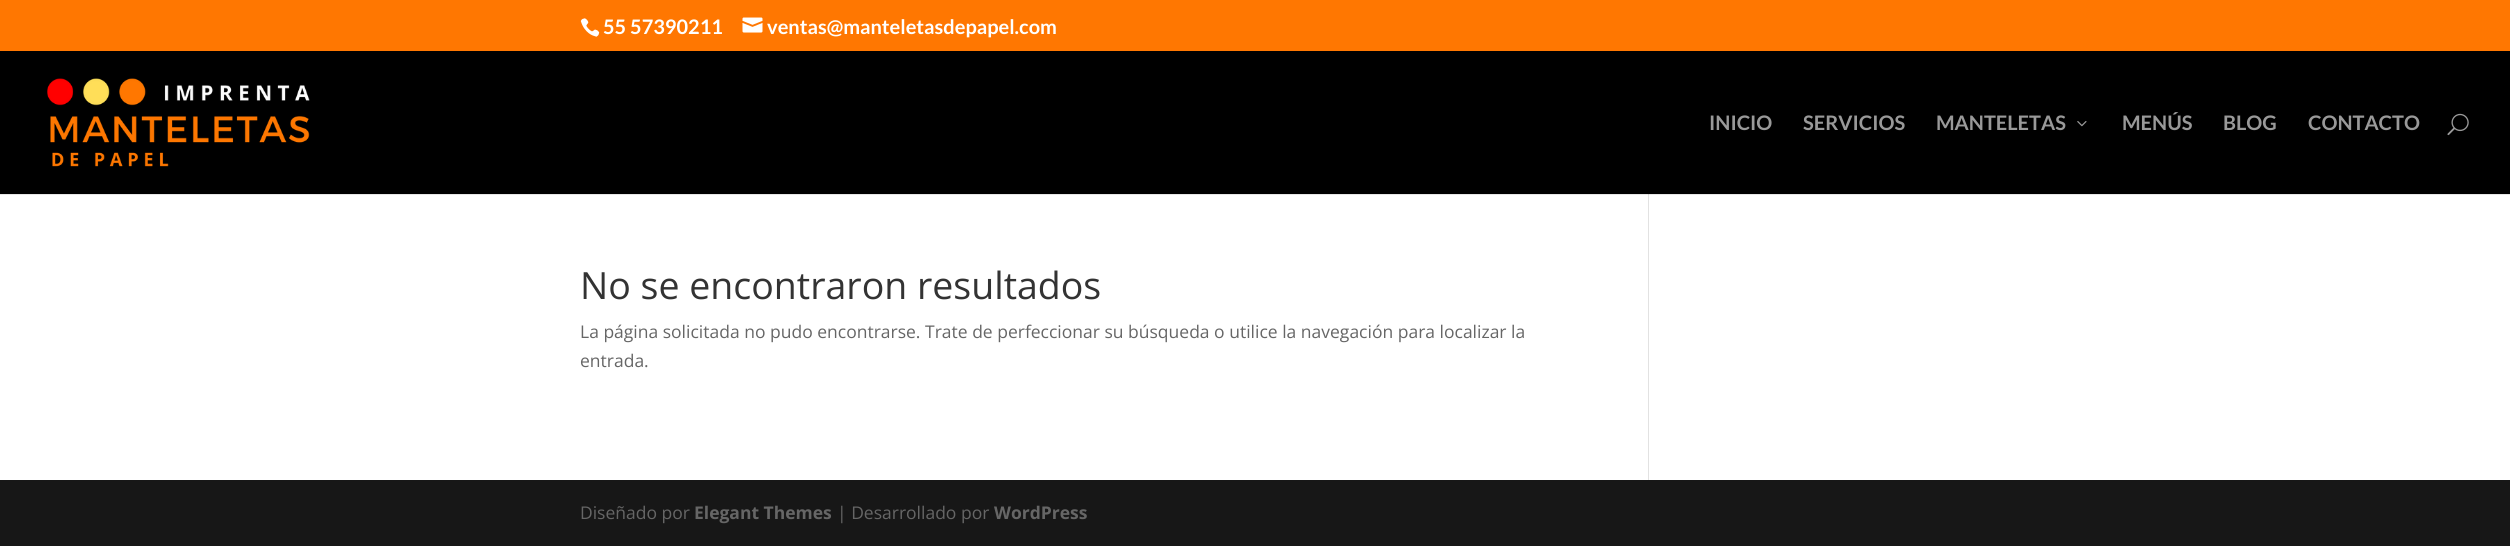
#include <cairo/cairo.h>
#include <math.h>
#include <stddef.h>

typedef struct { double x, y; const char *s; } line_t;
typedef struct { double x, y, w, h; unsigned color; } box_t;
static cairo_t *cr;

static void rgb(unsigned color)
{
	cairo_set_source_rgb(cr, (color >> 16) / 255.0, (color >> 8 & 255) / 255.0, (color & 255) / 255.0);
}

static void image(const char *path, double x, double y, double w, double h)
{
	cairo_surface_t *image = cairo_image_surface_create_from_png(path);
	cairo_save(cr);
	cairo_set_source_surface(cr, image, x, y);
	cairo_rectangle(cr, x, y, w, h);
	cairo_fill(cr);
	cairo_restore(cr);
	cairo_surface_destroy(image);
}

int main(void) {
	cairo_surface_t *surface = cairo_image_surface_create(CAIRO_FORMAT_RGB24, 2510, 559);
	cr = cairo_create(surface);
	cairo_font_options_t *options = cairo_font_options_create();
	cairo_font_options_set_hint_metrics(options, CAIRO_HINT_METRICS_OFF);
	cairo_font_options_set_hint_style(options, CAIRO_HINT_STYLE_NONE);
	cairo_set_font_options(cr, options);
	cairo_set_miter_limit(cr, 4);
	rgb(0xffffff);
	cairo_paint(cr);
	rgb(0xe6e6e6);
	cairo_rectangle(cr, 0, 194, 2510, 1);
	cairo_fill(cr);
	rgb(0xff7701);
	cairo_rectangle(cr, 0, 0, 2510, 51);
	cairo_fill(cr);
	image("img/1.png", 580, 18, 20, 19);
	image("img/2.png", 742, 17, 21, 16);
	rgb(0x000000);
	cairo_rectangle(cr, 0, 51, 2510, 143);
	cairo_fill(cr);
	image("img/3.png", 47, 78, 263, 89);
	image("img/4.png", 2077, 121, 10, 6);
	image("img/5.png", 2447, 113, 22, 23);
	{
		static const box_t items[] = {
			{1648, 194, 1, 286, 0xe2e2e2},
			{1648, 194, 1, 1, 0xcbcbcb},
			{0, 480, 2510, 66, 0x171717},
		};
		for (size_t i = 0; i < sizeof items / sizeof *items; i++) {
			rgb(items[i].color);
			cairo_rectangle(cr, items[i].x, items[i].y, items[i].w, items[i].h);
			cairo_fill(cr);
		}
	}
	cairo_select_font_face(cr, "Lato", CAIRO_FONT_SLANT_NORMAL, CAIRO_FONT_WEIGHT_BOLD);
	cairo_set_font_size(cr, 20);
	rgb(0xffffff);
	cairo_move_to(cr, 603, 34);
	cairo_show_text(cr, "55 57390211");
	cairo_move_to(cr, 767, 34);
	cairo_show_text(cr, "ventas@manteletasdepapel.com");
	rgb(0x999999);
	{
		static const line_t items[] = {
			{1709, 130, "INICIO"},
			{1803, 130, "SERVICIOS"},
			{1936, 130, "MANTELETAS"},
			{2122, 130, "MENÚS"},
			{2223, 130, "BLOG"},
			{2308, 130, "CONTACTO"},
		};
		for (size_t i = 0; i < sizeof items / sizeof *items; i++) {
			cairo_move_to(cr, items[i].x, items[i].y);
			cairo_show_text(cr, items[i].s);
		}
	}
	cairo_select_font_face(cr, "Open Sans", CAIRO_FONT_SLANT_NORMAL, CAIRO_FONT_WEIGHT_NORMAL);
	cairo_set_font_size(cr, 37.5);
	rgb(0x333333);
	cairo_move_to(cr, 580, 299);
	cairo_show_text(cr, "No se encontraron resultados");
	cairo_set_font_size(cr, 17.5);
	rgb(0x666666);
	{
		static const line_t items[] = {
			{580, 338, "La página solicitada no pudo encontrarse. Trate de perfeccionar su búsqueda o utilice la navegación para localizar la"},
			{580, 367, "entrada."},
			{580, 519, "Diseñado por"},
		};
		for (size_t i = 0; i < sizeof items / sizeof *items; i++) {
			cairo_move_to(cr, items[i].x, items[i].y);
			cairo_show_text(cr, items[i].s);
		}
	}
	cairo_select_font_face(cr, "Open Sans", CAIRO_FONT_SLANT_NORMAL, CAIRO_FONT_WEIGHT_BOLD);
	cairo_move_to(cr, 694, 519);
	cairo_show_text(cr, "Elegant Themes");
	cairo_select_font_face(cr, "Open Sans", CAIRO_FONT_SLANT_NORMAL, CAIRO_FONT_WEIGHT_NORMAL);
	cairo_move_to(cr, 837, 519);
	cairo_show_text(cr, "| Desarrollado por");
	cairo_select_font_face(cr, "Open Sans", CAIRO_FONT_SLANT_NORMAL, CAIRO_FONT_WEIGHT_BOLD);
	cairo_move_to(cr, 994, 519);
	cairo_show_text(cr, "WordPress");
	cairo_surface_write_to_png(surface, "page.png");
	cairo_font_options_destroy(options);
	cairo_destroy(cr);
	cairo_surface_destroy(surface);
	return 0;
}
